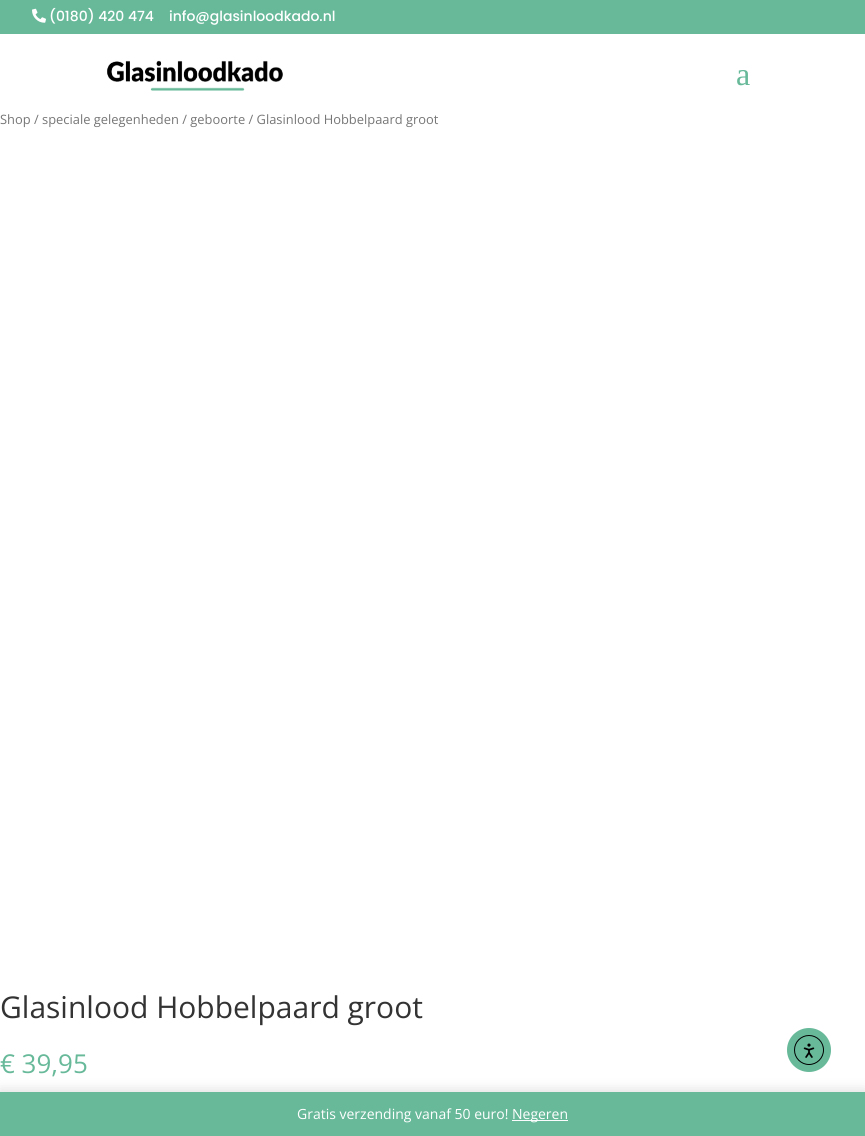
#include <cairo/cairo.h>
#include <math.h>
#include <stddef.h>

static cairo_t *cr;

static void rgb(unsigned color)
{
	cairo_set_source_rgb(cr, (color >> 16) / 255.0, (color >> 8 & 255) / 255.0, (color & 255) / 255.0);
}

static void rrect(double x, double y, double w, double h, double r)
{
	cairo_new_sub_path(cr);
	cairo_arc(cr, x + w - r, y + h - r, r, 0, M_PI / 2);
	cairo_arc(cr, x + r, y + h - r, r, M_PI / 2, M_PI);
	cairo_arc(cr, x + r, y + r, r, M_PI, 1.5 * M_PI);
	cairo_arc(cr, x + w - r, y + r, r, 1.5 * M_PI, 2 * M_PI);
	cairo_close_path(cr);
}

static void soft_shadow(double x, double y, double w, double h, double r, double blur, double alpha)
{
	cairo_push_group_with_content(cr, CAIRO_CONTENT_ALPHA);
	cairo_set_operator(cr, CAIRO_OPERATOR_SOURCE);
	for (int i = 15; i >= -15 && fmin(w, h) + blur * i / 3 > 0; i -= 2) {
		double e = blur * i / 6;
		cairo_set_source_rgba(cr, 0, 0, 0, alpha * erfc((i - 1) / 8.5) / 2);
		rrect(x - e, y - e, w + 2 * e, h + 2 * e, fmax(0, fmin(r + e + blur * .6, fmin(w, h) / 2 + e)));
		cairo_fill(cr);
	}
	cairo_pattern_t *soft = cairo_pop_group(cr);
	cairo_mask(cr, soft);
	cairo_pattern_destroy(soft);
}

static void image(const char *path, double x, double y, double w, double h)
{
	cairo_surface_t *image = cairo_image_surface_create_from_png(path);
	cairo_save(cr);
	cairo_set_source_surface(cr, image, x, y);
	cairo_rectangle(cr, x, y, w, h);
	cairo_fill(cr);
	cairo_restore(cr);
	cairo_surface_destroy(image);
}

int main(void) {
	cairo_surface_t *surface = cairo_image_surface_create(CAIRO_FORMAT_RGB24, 865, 1136);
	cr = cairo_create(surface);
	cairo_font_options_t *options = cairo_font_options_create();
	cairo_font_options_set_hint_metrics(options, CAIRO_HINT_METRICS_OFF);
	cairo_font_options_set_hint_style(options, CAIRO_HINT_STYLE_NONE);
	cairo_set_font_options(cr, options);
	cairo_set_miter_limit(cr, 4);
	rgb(0xffffff);
	cairo_paint(cr);
	rgb(0x67b99a);
	cairo_rectangle(cr, 0, 0, 865, 34);
	cairo_fill(cr);
	image("img/1.png", 32, 8, 14, 15);
	image("img/2.png", 107, 60, 176, 31);
	rgb(0x000000);
	soft_shadow(0, 1093, 865, 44, 0, 7, 0.2);
	rgb(0x67b99a);
	cairo_arc(cr, 809, 1050, 22, 0, 2 * M_PI);
	cairo_fill(cr);
	cairo_arc(cr, 809, 1050, 14.5, 0, 2 * M_PI);
	rgb(0x000000);
	cairo_set_line_width(cr, 1);
	cairo_stroke(cr);
	image("img/3.png", 803, 1043, 12, 15);
	rgb(0x67b99a);
	cairo_rectangle(cr, 0, 1092, 865, 44);
	cairo_fill(cr);
	rgb(0xfcfbfe);
	cairo_rectangle(cr, 512, 1120, 56, 1);
	cairo_fill(cr);
	cairo_select_font_face(cr, "Poppins Medium", CAIRO_FONT_SLANT_NORMAL, CAIRO_FONT_WEIGHT_NORMAL);
	cairo_set_font_size(cr, 14);
	rgb(0xffffff);
	cairo_move_to(cr, 49, 21);
	cairo_show_text(cr, "(0180) 420 474");
	cairo_move_to(cr, 169, 21);
	cairo_show_text(cr, "info@glasinloodkado.nl");
	cairo_select_font_face(cr, "Liberation Serif", CAIRO_FONT_SLANT_NORMAL, CAIRO_FONT_WEIGHT_NORMAL);
	cairo_set_font_size(cr, 32);
	rgb(0x67b99a);
	cairo_move_to(cr, 736, 85);
	cairo_show_text(cr, "a");
	cairo_select_font_face(cr, "Open Sans", CAIRO_FONT_SLANT_NORMAL, CAIRO_FONT_WEIGHT_NORMAL);
	cairo_set_font_size(cr, 12.9);
	rgb(0x767676);
	cairo_move_to(cr, 0, 124);
	cairo_show_text(cr, "Shop / speciale gelegenheden / geboorte / Glasinlood Hobbelpaard groot");
	cairo_set_font_size(cr, 30);
	rgb(0x333333);
	cairo_move_to(cr, 0, 1018);
	cairo_show_text(cr, "Glasinlood Hobbelpaard groot");
	cairo_set_font_size(cr, 26);
	rgb(0x67b99a);
	cairo_move_to(cr, 0, 1073);
	cairo_show_text(cr, "€ 39,95");
	cairo_set_font_size(cr, 14);
	rgb(0xffffff);
	cairo_move_to(cr, 297, 1119);
	cairo_show_text(cr, "Gratis verzending vanaf 50 euro!");
	cairo_move_to(cr, 512, 1119);
	cairo_show_text(cr, "Negeren");
	cairo_surface_write_to_png(surface, "page.png");
	cairo_font_options_destroy(options);
	cairo_destroy(cr);
	cairo_surface_destroy(surface);
	return 0;
}
